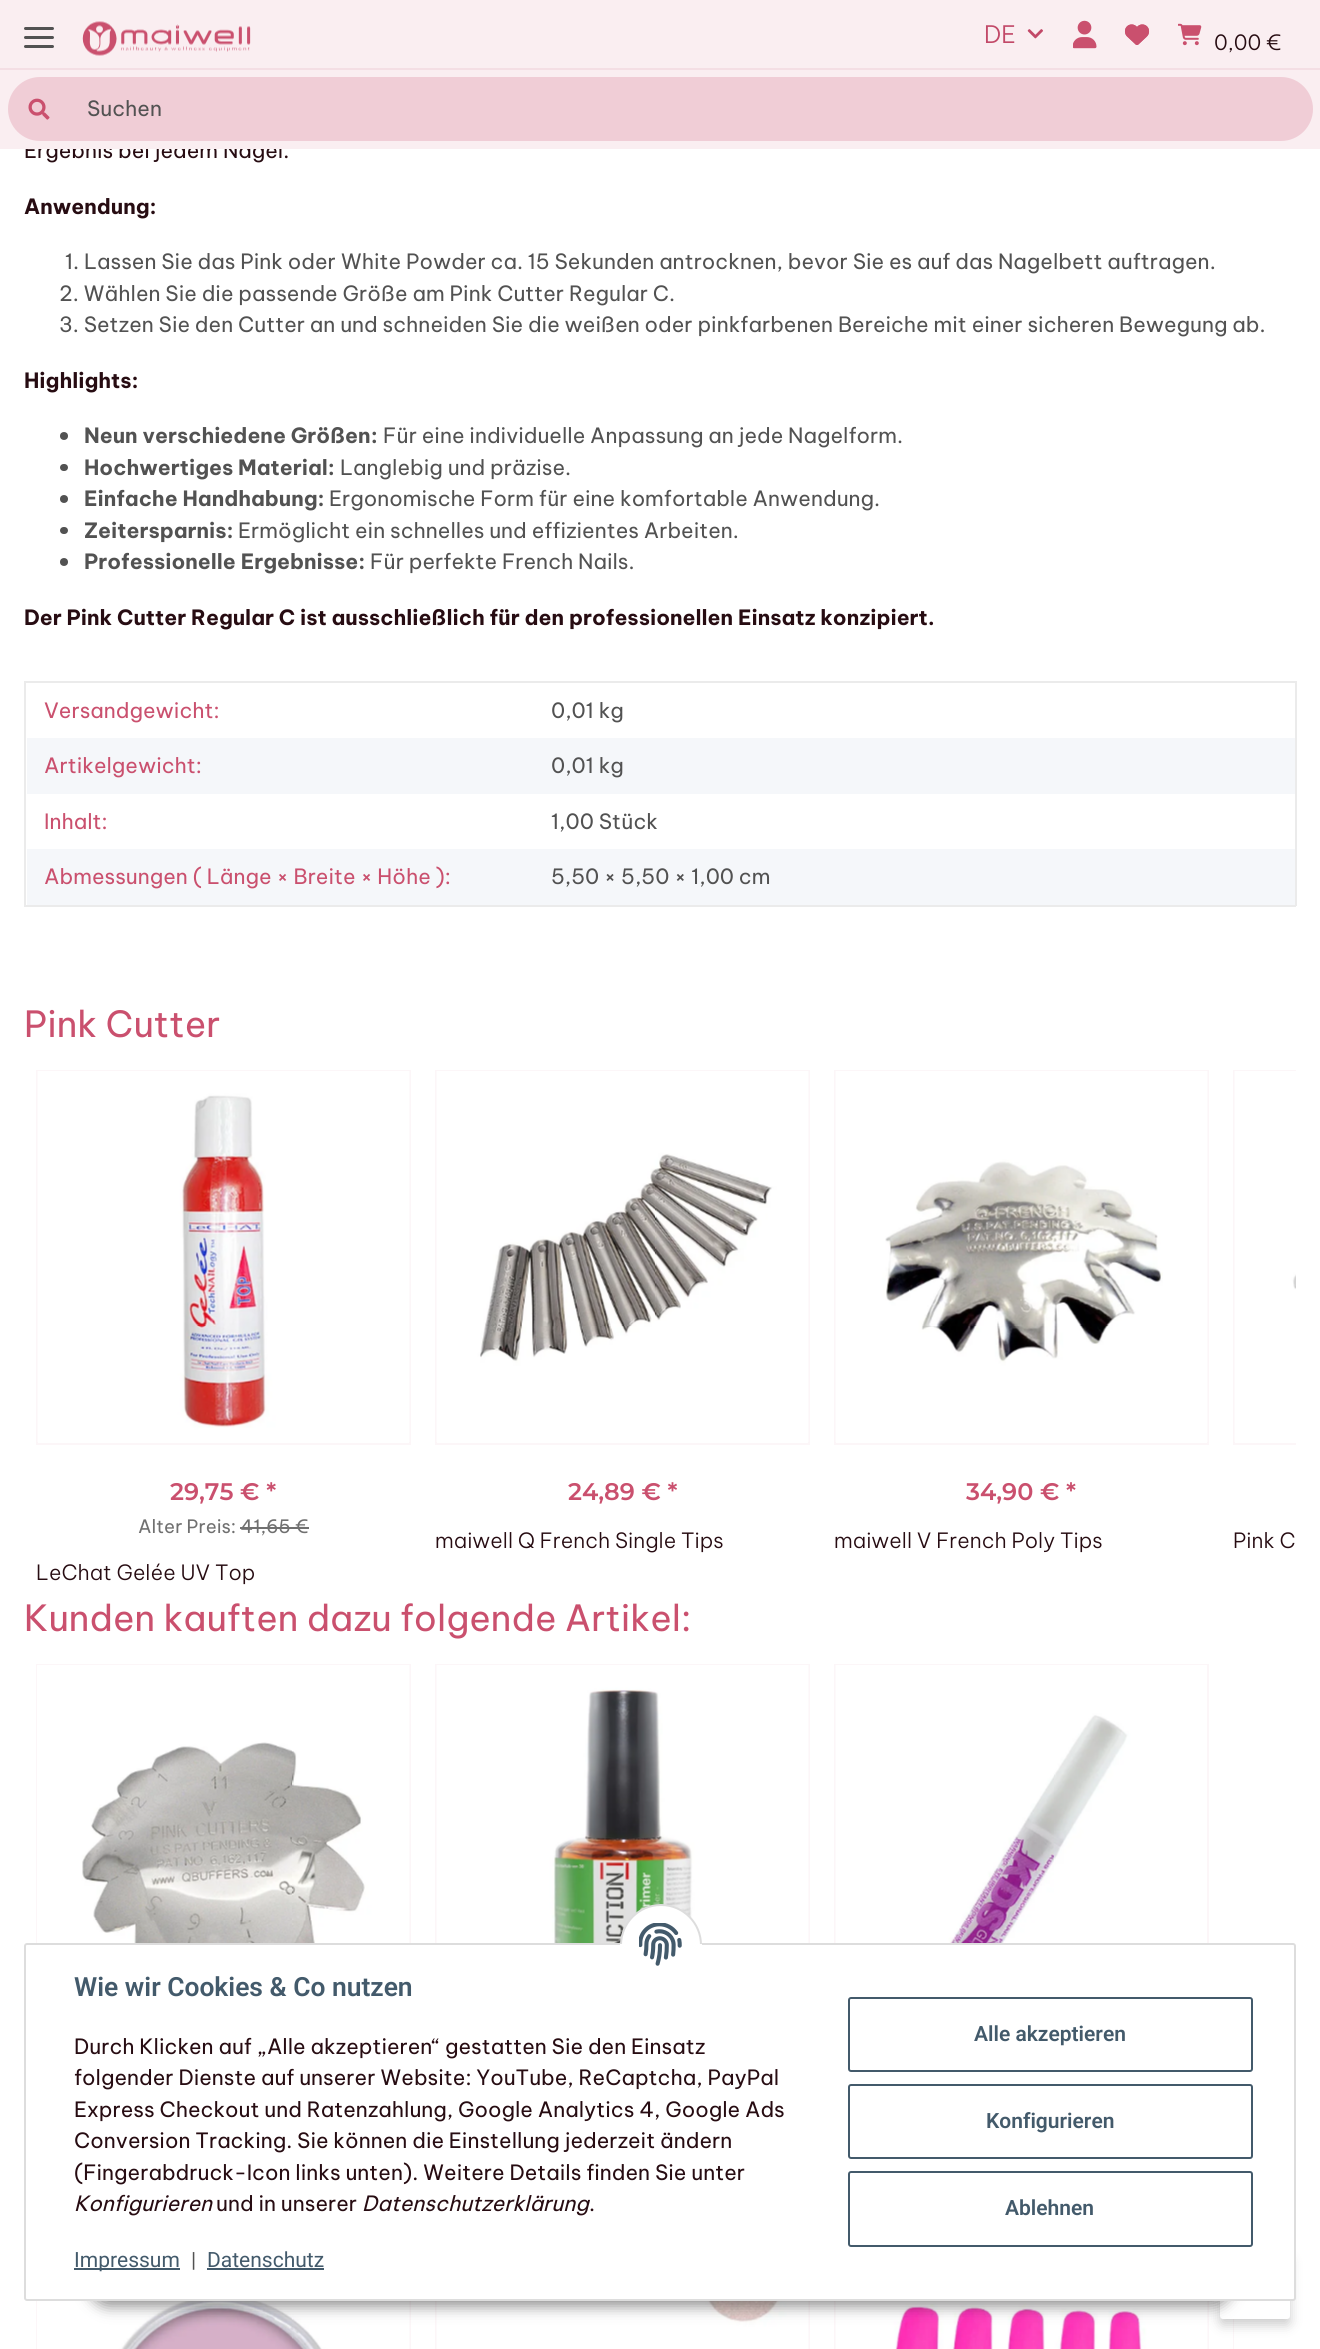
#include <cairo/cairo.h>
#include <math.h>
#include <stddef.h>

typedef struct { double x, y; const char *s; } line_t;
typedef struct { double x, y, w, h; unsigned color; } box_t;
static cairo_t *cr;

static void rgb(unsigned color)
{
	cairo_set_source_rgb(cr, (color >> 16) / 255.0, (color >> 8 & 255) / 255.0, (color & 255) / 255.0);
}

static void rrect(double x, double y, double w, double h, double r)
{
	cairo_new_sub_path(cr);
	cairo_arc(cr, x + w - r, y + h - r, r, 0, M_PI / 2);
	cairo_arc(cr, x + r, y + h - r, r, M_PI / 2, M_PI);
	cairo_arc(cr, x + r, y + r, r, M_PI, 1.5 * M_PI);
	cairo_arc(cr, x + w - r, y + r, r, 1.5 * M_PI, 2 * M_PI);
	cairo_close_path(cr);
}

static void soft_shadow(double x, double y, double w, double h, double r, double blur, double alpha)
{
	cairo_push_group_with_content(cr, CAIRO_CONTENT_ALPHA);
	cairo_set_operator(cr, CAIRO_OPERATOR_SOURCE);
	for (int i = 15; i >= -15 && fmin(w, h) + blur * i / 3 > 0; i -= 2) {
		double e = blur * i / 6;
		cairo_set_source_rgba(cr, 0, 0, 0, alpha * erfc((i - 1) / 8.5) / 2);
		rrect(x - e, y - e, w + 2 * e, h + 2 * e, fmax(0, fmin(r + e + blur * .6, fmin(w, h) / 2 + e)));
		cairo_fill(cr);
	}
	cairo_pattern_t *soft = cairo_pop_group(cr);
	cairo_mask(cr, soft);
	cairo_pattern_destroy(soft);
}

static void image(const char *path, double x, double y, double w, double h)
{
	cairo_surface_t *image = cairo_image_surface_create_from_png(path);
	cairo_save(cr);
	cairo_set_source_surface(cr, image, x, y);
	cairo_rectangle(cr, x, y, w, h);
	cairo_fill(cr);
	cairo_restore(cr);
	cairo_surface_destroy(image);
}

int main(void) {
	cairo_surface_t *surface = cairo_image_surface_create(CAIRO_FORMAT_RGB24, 1320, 2349);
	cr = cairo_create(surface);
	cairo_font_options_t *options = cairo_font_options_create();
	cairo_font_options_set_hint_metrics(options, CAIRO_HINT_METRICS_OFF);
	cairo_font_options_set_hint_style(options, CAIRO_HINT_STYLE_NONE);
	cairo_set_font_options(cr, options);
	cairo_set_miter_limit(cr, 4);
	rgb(0xffffff);
	cairo_paint(cr);
	rgb(0x525252);
	cairo_arc(cr, 64, 436, 4, 0, 2 * M_PI);
	cairo_fill(cr);
	rrect(60, 464, 8, 7, 3.5);
	cairo_fill(cr);
	cairo_arc(cr, 64, 499, 4, 0, 2 * M_PI);
	cairo_fill(cr);
	rrect(60, 527, 8, 7, 3.5);
	cairo_fill(cr);
	cairo_arc(cr, 64, 562, 4, 0, 2 * M_PI);
	cairo_fill(cr);
	{
		static const box_t items[] = {
			{24, 681, 1272, 2, 0xebebeb},
			{1295, 738, 2, 168, 0xebebeb},
			{1295, 681, 2, 59, 0xebebeb},
			{24, 905, 1272, 2, 0xebebeb},
			{24, 738, 2, 168, 0xebebeb},
			{24, 681, 2, 59, 0xebebeb},
			{27, 738, 1268, 56, 0xf5f7fa},
			{27, 849, 1268, 56, 0xf5f7fa},
		};
		for (size_t i = 0; i < sizeof items / sizeof *items; i++) {
			rgb(items[i].color);
			cairo_rectangle(cr, items[i].x, items[i].y, items[i].w, items[i].h);
			cairo_fill(cr);
		}
	}
	cairo_rectangle(cr, 37, 1071, 373, 373);
	rgb(0xfcf6f8);
	cairo_stroke(cr);
	image("img/8.png", 37, 1071, 373, 371);
	rgb(0x707070);
	cairo_rectangle(cr, 240, 1527, 69, 2);
	cairo_fill(cr);
	cairo_rectangle(cr, 436, 1071, 373, 373);
	rgb(0xfcf6f8);
	cairo_stroke(cr);
	image("img/9.png", 436, 1071, 373, 371);
	cairo_rectangle(cr, 835, 1071, 373, 373);
	cairo_stroke(cr);
	image("img/10.png", 835, 1071, 373, 371);
	cairo_save(cr);
	cairo_rectangle(cr, 24, 1070, 1272, 526);
	cairo_clip(cr);
	cairo_rectangle(cr, 1234, 1071, 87, 373);
	cairo_stroke(cr);
	cairo_restore(cr);
	image("img/11.png", 1234, 1071, 62, 371);
	cairo_rectangle(cr, 37, 1665, 373, 373);
	cairo_stroke(cr);
	image("img/12.png", 37, 1665, 373, 278);
	cairo_rectangle(cr, 436, 1665, 373, 373);
	cairo_stroke(cr);
	image("img/13.png", 436, 1665, 373, 278);
	cairo_rectangle(cr, 835, 1665, 373, 373);
	cairo_stroke(cr);
	image("img/14.png", 835, 1665, 372, 278);
	cairo_rectangle(cr, 37, 2227, 373, 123);
	cairo_stroke(cr);
	image("img/15.png", 37, 2301, 373, 48);
	cairo_rectangle(cr, 436, 2227, 373, 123);
	cairo_stroke(cr);
	image("img/16.png", 436, 2301, 373, 48);
	cairo_rectangle(cr, 835, 2227, 373, 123);
	cairo_stroke(cr);
	image("img/17.png", 835, 2301, 373, 48);
	cairo_save(cr);
	cairo_rectangle(cr, 24, 2226, 1272, 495);
	cairo_clip(cr);
	cairo_rectangle(cr, 1234, 2227, 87, 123);
	cairo_stroke(cr);
	cairo_restore(cr);
	rgb(0xffffff);
	cairo_rectangle(cr, 1234, 2298, 1, 51);
	cairo_fill(cr);
	rgb(0x000000);
	soft_shadow(1220, 2259, 70, 66, 3, 6, 0.2);
	rgb(0xffffff);
	rrect(1220, 2253, 70, 66, 3);
	cairo_fill(cr);
	rgb(0x000000);
	soft_shadow(89, 2258, 1143, 48, 24, 7.5, 0.45);
	rgb(0xffffff);
	rrect(25, 1944, 1270, 356, 2);
	cairo_fill_preserve(cr);
	rgb(0xdddddd);
	cairo_stroke(cr);
	rgb(0xffffff);
	cairo_arc(cr, 661, 1945, 40, 0, 2 * M_PI);
	cairo_fill_preserve(cr);
	rgb(0xdddddd);
	cairo_stroke(cr);
	rgb(0xffffff);
	cairo_rectangle(cr, 620, 1944, 82, 42);
	cairo_fill(cr);
	image("img/18.png", 639, 1923, 43, 43);
	rgb(0x435a6b);
	cairo_rectangle(cr, 74, 2268, 106, 2);
	cairo_fill(cr);
	cairo_rectangle(cr, 207, 2268, 117, 2);
	cairo_fill(cr);
	rrect(849, 1998, 403, 73, 2);
	cairo_stroke(cr);
	rrect(849, 2085, 403, 73, 2);
	cairo_stroke(cr);
	rrect(849, 2172, 403, 74, 2);
	cairo_stroke(cr);
	cairo_select_font_face(cr, "Be Vietnam Pro", CAIRO_FONT_SLANT_NORMAL, CAIRO_FONT_WEIGHT_NORMAL);
	cairo_set_font_size(cr, 21);
	rgb(0x270c12);
	cairo_move_to(cr, 24, 158);
	cairo_show_text(cr, "Ergebnis bei jedem Nagel.");
	rgb(0xfaeef1);
	cairo_rectangle(cr, 0, 0, 1320, 149);
	cairo_fill(cr);
	rgb(0xf0cdd6);
	rrect(8, 77, 1305, 64, 32);
	cairo_fill(cr);
	image("img/7.png", 28, 98, 22, 22);
	rgb(0x525252);
	rrect(24, 45, 30, 3, 1.5);
	cairo_fill(cr);
	rrect(24, 27, 30, 3, 1.5);
	cairo_fill(cr);
	rrect(24, 36, 30, 3, 1.5);
	cairo_fill(cr);
	image("img/1.png", 82, 21, 169, 35);
	cairo_move_to(cr, 87, 116);
	cairo_show_text(cr, "Suchen");
	image("img/6.png", 1178, 23, 24, 23);
	image("img/2.png", 1027, 29, 16, 10);
	image("img/4.png", 1124, 24, 26, 21);
	image("img/5.png", 1125, 24, 24, 21);
	image("img/3.png", 1073, 20, 24, 29);
	cairo_select_font_face(cr, "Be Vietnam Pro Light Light", CAIRO_FONT_SLANT_NORMAL, CAIRO_FONT_WEIGHT_NORMAL);
	rgb(0x270c12);
	cairo_move_to(cr, 1214, 50);
	cairo_show_text(cr, "0,00 €");
	cairo_set_font_size(cr, 24);
	rgb(0xc24968);
	cairo_move_to(cr, 984, 43);
	cairo_show_text(cr, "DE");
	rgb(0xf4dee4);
	cairo_rectangle(cr, 0, 68, 1320, 2);
	cairo_fill(cr);
	cairo_select_font_face(cr, "Be Vietnam Pro", CAIRO_FONT_SLANT_NORMAL, CAIRO_FONT_WEIGHT_BOLD);
	cairo_set_font_size(cr, 21);
	rgb(0x270c12);
	cairo_move_to(cr, 24, 214);
	cairo_show_text(cr, "Anwendung:");
	cairo_select_font_face(cr, "Be Vietnam Pro", CAIRO_FONT_SLANT_NORMAL, CAIRO_FONT_WEIGHT_NORMAL);
	rgb(0x525252);
	{
		static const line_t items[] = {
			{65, 269, "1. Lassen Sie das Pink oder White Powder ca. 15 Sekunden antrocknen, bevor Sie es auf das Nagelbett auftragen."},
			{59, 301, "2. Wählen Sie die passende Größe am Pink Cutter Regular C."},
			{59, 332, "3. Setzen Sie den Cutter an und schneiden Sie die weißen oder pinkfarbenen Bereiche mit einer sicheren Bewegung ab."},
		};
		for (size_t i = 0; i < sizeof items / sizeof *items; i++) {
			cairo_move_to(cr, items[i].x, items[i].y);
			cairo_show_text(cr, items[i].s);
		}
	}
	cairo_select_font_face(cr, "Be Vietnam Pro", CAIRO_FONT_SLANT_NORMAL, CAIRO_FONT_WEIGHT_BOLD);
	rgb(0x270c12);
	cairo_move_to(cr, 24, 388);
	cairo_show_text(cr, "Highlights:");
	rgb(0x525252);
	cairo_move_to(cr, 84, 443);
	cairo_show_text(cr, "Neun verschiedene Größen:");
	cairo_select_font_face(cr, "Be Vietnam Pro", CAIRO_FONT_SLANT_NORMAL, CAIRO_FONT_WEIGHT_NORMAL);
	cairo_move_to(cr, 383, 443);
	cairo_show_text(cr, "Für eine individuelle Anpassung an jede Nagelform.");
	cairo_select_font_face(cr, "Be Vietnam Pro", CAIRO_FONT_SLANT_NORMAL, CAIRO_FONT_WEIGHT_BOLD);
	cairo_move_to(cr, 84, 475);
	cairo_show_text(cr, "Hochwertiges Material:");
	cairo_select_font_face(cr, "Be Vietnam Pro", CAIRO_FONT_SLANT_NORMAL, CAIRO_FONT_WEIGHT_NORMAL);
	cairo_move_to(cr, 340, 475);
	cairo_show_text(cr, "Langlebig und präzise.");
	cairo_select_font_face(cr, "Be Vietnam Pro", CAIRO_FONT_SLANT_NORMAL, CAIRO_FONT_WEIGHT_BOLD);
	cairo_move_to(cr, 84, 506);
	cairo_show_text(cr, "Einfache Handhabung:");
	cairo_select_font_face(cr, "Be Vietnam Pro", CAIRO_FONT_SLANT_NORMAL, CAIRO_FONT_WEIGHT_NORMAL);
	cairo_move_to(cr, 329, 506);
	cairo_show_text(cr, "Ergonomische Form für eine komfortable Anwendung.");
	cairo_select_font_face(cr, "Be Vietnam Pro", CAIRO_FONT_SLANT_NORMAL, CAIRO_FONT_WEIGHT_BOLD);
	cairo_move_to(cr, 84, 538);
	cairo_show_text(cr, "Zeitersparnis:");
	cairo_select_font_face(cr, "Be Vietnam Pro", CAIRO_FONT_SLANT_NORMAL, CAIRO_FONT_WEIGHT_NORMAL);
	cairo_move_to(cr, 238, 538);
	cairo_show_text(cr, "Ermöglicht ein schnelles und effizientes Arbeiten.");
	cairo_select_font_face(cr, "Be Vietnam Pro", CAIRO_FONT_SLANT_NORMAL, CAIRO_FONT_WEIGHT_BOLD);
	cairo_move_to(cr, 84, 569);
	cairo_show_text(cr, "Professionelle Ergebnisse:");
	cairo_select_font_face(cr, "Be Vietnam Pro", CAIRO_FONT_SLANT_NORMAL, CAIRO_FONT_WEIGHT_NORMAL);
	cairo_move_to(cr, 370, 569);
	cairo_show_text(cr, "Für perfekte French Nails.");
	cairo_select_font_face(cr, "Be Vietnam Pro", CAIRO_FONT_SLANT_NORMAL, CAIRO_FONT_WEIGHT_BOLD);
	rgb(0x270c12);
	cairo_move_to(cr, 24, 625);
	cairo_show_text(cr, "Der Pink Cutter Regular C ist ausschließlich für den professionellen Einsatz konzipiert.");
	cairo_select_font_face(cr, "Be Vietnam Pro", CAIRO_FONT_SLANT_NORMAL, CAIRO_FONT_WEIGHT_NORMAL);
	rgb(0xca506e);
	cairo_move_to(cr, 44, 718);
	cairo_show_text(cr, "Versandgewicht:");
	rgb(0x525252);
	cairo_move_to(cr, 551, 718);
	cairo_show_text(cr, "0,01 kg");
	rgb(0xca506e);
	cairo_move_to(cr, 44, 773);
	cairo_show_text(cr, "Artikelgewicht:");
	rgb(0x525252);
	cairo_move_to(cr, 551, 773);
	cairo_show_text(cr, "0,01 kg");
	rgb(0xca506e);
	cairo_move_to(cr, 44, 829);
	cairo_show_text(cr, "Inhalt:");
	rgb(0x525252);
	cairo_move_to(cr, 551, 829);
	cairo_show_text(cr, "1,00 Stück");
	rgb(0xca506e);
	cairo_move_to(cr, 44, 884);
	cairo_show_text(cr, "Abmessungen ( Länge × Breite × Höhe ):");
	rgb(0x525252);
	cairo_move_to(cr, 551, 884);
	cairo_show_text(cr, "5,50 × 5,50 × 1,00 cm");
	cairo_set_font_size(cr, 36);
	rgb(0xca506e);
	cairo_move_to(cr, 24, 1037);
	cairo_show_text(cr, "Pink Cutter");
	cairo_select_font_face(cr, "Montserrat SemiBold", CAIRO_FONT_SLANT_NORMAL, CAIRO_FONT_WEIGHT_NORMAL);
	cairo_set_font_size(cr, 24);
	cairo_move_to(cr, 170, 1500);
	cairo_show_text(cr, "29,75 € *");
	cairo_select_font_face(cr, "Be Vietnam Pro", CAIRO_FONT_SLANT_NORMAL, CAIRO_FONT_WEIGHT_NORMAL);
	cairo_set_font_size(cr, 18.4);
	rgb(0x707070);
	cairo_move_to(cr, 138, 1533);
	cairo_show_text(cr, "Alter Preis: 41,65 €");
	cairo_select_font_face(cr, "Be Vietnam Pro Light Light", CAIRO_FONT_SLANT_NORMAL, CAIRO_FONT_WEIGHT_NORMAL);
	cairo_set_font_size(cr, 21);
	rgb(0x270c12);
	cairo_move_to(cr, 36, 1580);
	cairo_show_text(cr, "LeChat Gelée UV Top");
	cairo_select_font_face(cr, "Montserrat SemiBold", CAIRO_FONT_SLANT_NORMAL, CAIRO_FONT_WEIGHT_NORMAL);
	cairo_set_font_size(cr, 24);
	rgb(0xca506e);
	cairo_move_to(cr, 568, 1500);
	cairo_show_text(cr, "24,89 € *");
	cairo_select_font_face(cr, "Be Vietnam Pro Light Light", CAIRO_FONT_SLANT_NORMAL, CAIRO_FONT_WEIGHT_NORMAL);
	cairo_set_font_size(cr, 21);
	rgb(0x270c12);
	cairo_move_to(cr, 435, 1548);
	cairo_show_text(cr, "maiwell Q French Single Tips");
	cairo_select_font_face(cr, "Montserrat SemiBold", CAIRO_FONT_SLANT_NORMAL, CAIRO_FONT_WEIGHT_NORMAL);
	cairo_set_font_size(cr, 24);
	rgb(0xca506e);
	cairo_move_to(cr, 966, 1500);
	cairo_show_text(cr, "34,90 € *");
	cairo_select_font_face(cr, "Be Vietnam Pro Light Light", CAIRO_FONT_SLANT_NORMAL, CAIRO_FONT_WEIGHT_NORMAL);
	cairo_set_font_size(cr, 21);
	rgb(0x270c12);
	cairo_move_to(cr, 834, 1548);
	cairo_show_text(cr, "maiwell V French Poly Tips");
	cairo_move_to(cr, 1233, 1548);
	cairo_show_text(cr, "Pink C");
	cairo_select_font_face(cr, "Be Vietnam Pro", CAIRO_FONT_SLANT_NORMAL, CAIRO_FONT_WEIGHT_NORMAL);
	cairo_set_font_size(cr, 36);
	rgb(0xca506e);
	cairo_move_to(cr, 24, 1631);
	cairo_show_text(cr, "Kunden kauften dazu folgende Artikel:");
	cairo_select_font_face(cr, "Roboto SemiBold", CAIRO_FONT_SLANT_NORMAL, CAIRO_FONT_WEIGHT_NORMAL);
	cairo_set_font_size(cr, 26.4);
	rgb(0x435a6b);
	cairo_move_to(cr, 74, 1996);
	cairo_show_text(cr, "Wie wir Cookies & Co nutzen");
	cairo_select_font_face(cr, "Be Vietnam Pro", CAIRO_FONT_SLANT_NORMAL, CAIRO_FONT_WEIGHT_NORMAL);
	cairo_set_font_size(cr, 21);
	rgb(0x270c12);
	{
		static const line_t items[] = {
			{74, 2054, "Durch Klicken auf „Alle akzeptieren“ gestatten Sie den Einsatz"},
			{74, 2085, "folgender Dienste auf unserer Website: YouTube, ReCaptcha, PayPal"},
			{74, 2117, "Express Checkout und Ratenzahlung, Google Analytics 4, Google Ads"},
			{74, 2148, "Conversion Tracking. Sie können die Einstellung jederzeit ändern"},
			{74, 2180, "(Fingerabdruck-Icon links unten). Weitere Details finden Sie unter"},
		};
		for (size_t i = 0; i < sizeof items / sizeof *items; i++) {
			cairo_move_to(cr, items[i].x, items[i].y);
			cairo_show_text(cr, items[i].s);
		}
	}
	cairo_select_font_face(cr, "Be Vietnam Pro", CAIRO_FONT_SLANT_ITALIC, CAIRO_FONT_WEIGHT_NORMAL);
	cairo_move_to(cr, 74, 2211);
	cairo_show_text(cr, "Konfigurieren");
	cairo_select_font_face(cr, "Be Vietnam Pro", CAIRO_FONT_SLANT_NORMAL, CAIRO_FONT_WEIGHT_NORMAL);
	cairo_move_to(cr, 216, 2211);
	cairo_show_text(cr, "und in unserer");
	cairo_select_font_face(cr, "Be Vietnam Pro", CAIRO_FONT_SLANT_ITALIC, CAIRO_FONT_WEIGHT_NORMAL);
	cairo_move_to(cr, 362, 2211);
	cairo_show_text(cr, "Datenschutzerklärung");
	cairo_select_font_face(cr, "Be Vietnam Pro", CAIRO_FONT_SLANT_NORMAL, CAIRO_FONT_WEIGHT_NORMAL);
	cairo_move_to(cr, 589, 2211);
	cairo_show_text(cr, ".");
	cairo_select_font_face(cr, "Roboto", CAIRO_FONT_SLANT_NORMAL, CAIRO_FONT_WEIGHT_NORMAL);
	rgb(0x435a6b);
	cairo_move_to(cr, 74, 2267);
	cairo_show_text(cr, "Impressum");
	rgb(0x525252);
	cairo_move_to(cr, 191, 2267);
	cairo_show_text(cr, "|");
	rgb(0x435a6b);
	cairo_move_to(cr, 207, 2267);
	cairo_show_text(cr, "Datenschutz");
	cairo_select_font_face(cr, "Roboto SemiBold", CAIRO_FONT_SLANT_NORMAL, CAIRO_FONT_WEIGHT_NORMAL);
	{
		static const line_t items[] = {
			{974, 2041, "Alle akzeptieren"},
			{986, 2128, "Konfigurieren"},
			{1005, 2215, "Ablehnen"},
		};
		for (size_t i = 0; i < sizeof items / sizeof *items; i++) {
			cairo_move_to(cr, items[i].x, items[i].y);
			cairo_show_text(cr, items[i].s);
		}
	}
	cairo_surface_write_to_png(surface, "page.png");
	cairo_font_options_destroy(options);
	cairo_destroy(cr);
	cairo_surface_destroy(surface);
	return 0;
}
